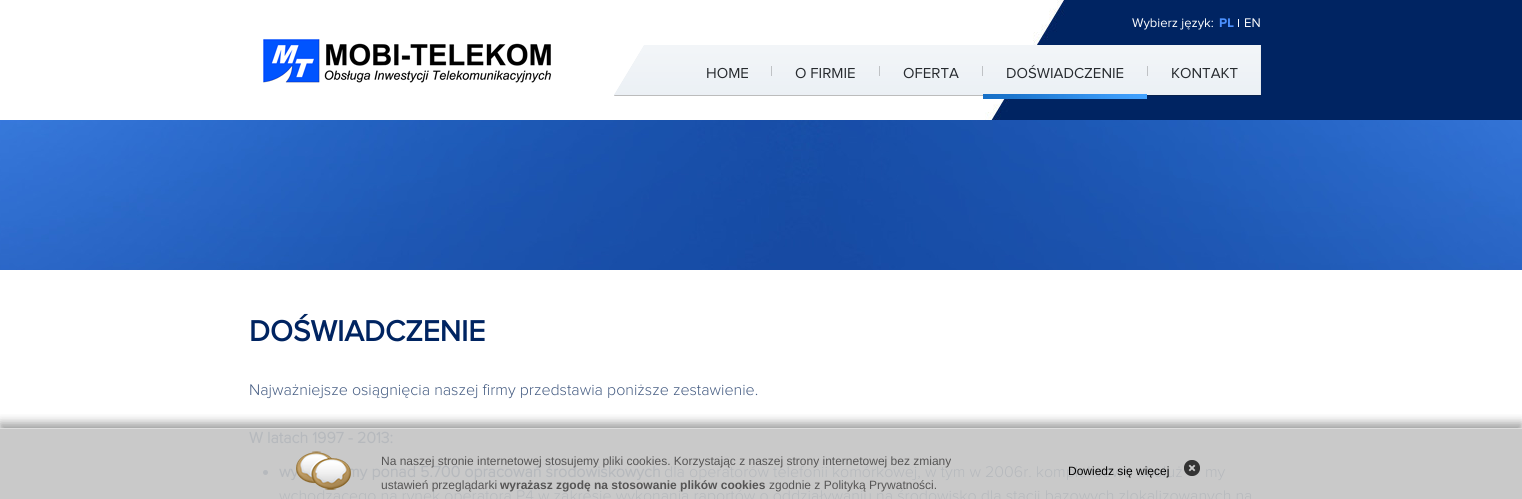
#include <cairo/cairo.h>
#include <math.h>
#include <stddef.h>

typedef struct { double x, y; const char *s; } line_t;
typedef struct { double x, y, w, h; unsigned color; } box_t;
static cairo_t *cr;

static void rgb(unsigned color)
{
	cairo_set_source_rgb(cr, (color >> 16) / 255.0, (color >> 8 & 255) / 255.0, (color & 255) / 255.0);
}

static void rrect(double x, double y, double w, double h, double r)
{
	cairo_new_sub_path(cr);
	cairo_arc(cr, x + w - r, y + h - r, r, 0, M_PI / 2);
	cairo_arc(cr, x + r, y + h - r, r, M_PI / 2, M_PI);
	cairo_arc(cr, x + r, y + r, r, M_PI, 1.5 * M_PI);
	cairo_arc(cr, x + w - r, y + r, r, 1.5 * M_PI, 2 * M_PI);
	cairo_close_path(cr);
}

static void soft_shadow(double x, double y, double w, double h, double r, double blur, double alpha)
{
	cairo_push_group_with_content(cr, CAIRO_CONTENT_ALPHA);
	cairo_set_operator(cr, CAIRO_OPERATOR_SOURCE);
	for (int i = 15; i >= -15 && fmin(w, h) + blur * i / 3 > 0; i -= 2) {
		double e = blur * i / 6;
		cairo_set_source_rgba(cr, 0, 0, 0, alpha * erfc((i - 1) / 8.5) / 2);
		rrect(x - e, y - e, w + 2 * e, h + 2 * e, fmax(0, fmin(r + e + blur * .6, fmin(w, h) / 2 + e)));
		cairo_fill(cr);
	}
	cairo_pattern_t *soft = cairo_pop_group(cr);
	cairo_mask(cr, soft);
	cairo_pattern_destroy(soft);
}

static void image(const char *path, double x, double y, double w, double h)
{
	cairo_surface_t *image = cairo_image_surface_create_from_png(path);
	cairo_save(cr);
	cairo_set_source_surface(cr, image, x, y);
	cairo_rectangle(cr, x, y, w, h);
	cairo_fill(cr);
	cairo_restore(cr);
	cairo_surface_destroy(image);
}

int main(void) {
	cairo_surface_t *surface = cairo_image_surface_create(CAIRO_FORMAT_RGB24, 1522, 499);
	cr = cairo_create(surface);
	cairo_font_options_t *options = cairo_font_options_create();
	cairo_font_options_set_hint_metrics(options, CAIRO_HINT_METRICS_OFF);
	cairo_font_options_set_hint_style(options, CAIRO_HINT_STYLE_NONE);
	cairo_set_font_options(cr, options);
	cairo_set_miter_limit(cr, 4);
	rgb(0xffffff);
	cairo_paint(cr);
	rgb(0xc9c9c9);
	cairo_rectangle(cr, 0, 429, 1522, 70);
	cairo_fill(cr);
	image("img/1.png", 985, 0, 537, 120);
	rgb(0xffffff);
	cairo_rectangle(cr, 1238, 19, 1, 8);
	cairo_fill(cr);
	image("img/2.png", 263, 39, 289, 44);
	image("img/3.png", 614, 45, 647, 51);
	{
		static const box_t items[] = {
			{771, 66, 1, 10, 0xbfc2c5},
			{879, 66, 1, 10, 0xbfc2c5},
			{982, 66, 1, 10, 0xbfc2c5},
		};
		for (size_t i = 0; i < sizeof items / sizeof *items; i++) {
			rgb(items[i].color);
			cairo_rectangle(cr, items[i].x, items[i].y, items[i].w, items[i].h);
			cairo_fill(cr);
		}
	}
	image("img/4.png", 983, 94, 164, 5);
	cairo_rectangle(cr, 1147, 66, 1, 10);
	cairo_fill(cr);
	image("img/5.png", 0, 120, 1522, 150);
	rgb(0xb6b9bd);
	cairo_arc(cr, 265.5, 472.5, 2.5, 0, 2 * M_PI);
	cairo_fill(cr);
	cairo_save(cr);
	cairo_rectangle(cr, 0, 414, 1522, 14);
	cairo_clip(cr);
	rgb(0x313232);
	soft_shadow(0, 423, 1522, 71, 0, 5, 0.48);
	cairo_restore(cr);
	rgb(0xdddddd);
	cairo_rectangle(cr, 0, 428, 1522, 1);
	cairo_fill(cr);
	image("img/7.png", 1184, 460, 16, 16);
	cairo_select_font_face(cr, "Proxima Nova", CAIRO_FONT_SLANT_NORMAL, CAIRO_FONT_WEIGHT_NORMAL);
	cairo_set_font_size(cr, 13);
	rgb(0xffffff);
	cairo_move_to(cr, 1132, 27);
	cairo_show_text(cr, "Wybierz język:");
	cairo_select_font_face(cr, "Proxima Nova", CAIRO_FONT_SLANT_NORMAL, CAIRO_FONT_WEIGHT_BOLD);
	rgb(0x4c91ff);
	cairo_move_to(cr, 1219, 27);
	cairo_show_text(cr, "PL");
	cairo_select_font_face(cr, "Proxima Nova", CAIRO_FONT_SLANT_NORMAL, CAIRO_FONT_WEIGHT_NORMAL);
	rgb(0xffffff);
	cairo_move_to(cr, 1244, 27);
	cairo_show_text(cr, "EN");
	cairo_set_font_size(cr, 15);
	rgb(0x272b2f);
	{
		static const line_t items[] = {
			{706, 78, "HOME"},
			{795, 78, "O FIRMIE"},
			{903, 78, "OFERTA"},
			{1006, 78, "DOŚWIADCZENIE"},
			{1171, 78, "KONTAKT"},
		};
		for (size_t i = 0; i < sizeof items / sizeof *items; i++) {
			cairo_move_to(cr, items[i].x, items[i].y);
			cairo_show_text(cr, items[i].s);
		}
	}
	cairo_select_font_face(cr, "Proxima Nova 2", CAIRO_FONT_SLANT_NORMAL, CAIRO_FONT_WEIGHT_BOLD);
	cairo_set_font_size(cr, 30);
	rgb(0x002461);
	cairo_move_to(cr, 249, 341);
	cairo_show_text(cr, "DOŚWIADCZENIE");
	cairo_select_font_face(cr, "Proxima Nova Light", CAIRO_FONT_SLANT_NORMAL, CAIRO_FONT_WEIGHT_NORMAL);
	cairo_set_font_size(cr, 16);
	rgb(0x455c82);
	cairo_move_to(cr, 249, 395);
	cairo_show_text(cr, "Najważniejsze osiągnięcia naszej firmy przedstawia poniższe zestawienie.");
	cairo_select_font_face(cr, "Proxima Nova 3", CAIRO_FONT_SLANT_NORMAL, CAIRO_FONT_WEIGHT_BOLD);
	rgb(0xb6b9bd);
	{
		static const line_t items[] = {
			{249, 443, "W latach 1997 - 2013:"},
			{279, 477, "wy"},
			{347, 477, "my ponad 5.700 opracowań środowiskowych"},
		};
		for (size_t i = 0; i < sizeof items / sizeof *items; i++) {
			cairo_move_to(cr, items[i].x, items[i].y);
			cairo_show_text(cr, items[i].s);
		}
	}
	cairo_select_font_face(cr, "Proxima Nova Light", CAIRO_FONT_SLANT_NORMAL, CAIRO_FONT_WEIGHT_NORMAL);
	{
		static const line_t items[] = {
			{664, 477, "dla operatorów telefonii komórkowej, w tym w 2006r. kompleksowo obsłuż"},
			{1205, 477, "my"},
			{279, 501, "wchodzącego na rynek operatora P4 w zakresie wykonania raportów o oddziaływaniu na środowisko dla stacji bazowych zlokalizowanych na"},
		};
		for (size_t i = 0; i < sizeof items / sizeof *items; i++) {
			cairo_move_to(cr, items[i].x, items[i].y);
			cairo_show_text(cr, items[i].s);
		}
	}
	image("img/6.png", 296, 451, 55, 39);
	cairo_select_font_face(cr, "Liberation Sans", CAIRO_FONT_SLANT_NORMAL, CAIRO_FONT_WEIGHT_NORMAL);
	cairo_set_font_size(cr, 12);
	rgb(0x565555);
	cairo_move_to(cr, 381, 465);
	cairo_show_text(cr, "Na naszej stronie internetowej stosujemy pliki cookies. Korzystając z naszej strony internetowej bez zmiany");
	rgb(0x000000);
	cairo_move_to(cr, 1068, 475);
	cairo_show_text(cr, "Dowiedz się więcej");
	rgb(0x565555);
	cairo_move_to(cr, 381, 489);
	cairo_show_text(cr, "ustawień przeglądarki");
	cairo_select_font_face(cr, "Liberation Sans", CAIRO_FONT_SLANT_NORMAL, CAIRO_FONT_WEIGHT_BOLD);
	cairo_move_to(cr, 500, 489);
	cairo_show_text(cr, "wyrażasz zgodę na stosowanie plików cookies");
	cairo_select_font_face(cr, "Liberation Sans", CAIRO_FONT_SLANT_NORMAL, CAIRO_FONT_WEIGHT_NORMAL);
	cairo_move_to(cr, 769, 489);
	cairo_show_text(cr, "zgodnie z Polityką Prywatności.");
	cairo_surface_write_to_png(surface, "page.png");
	cairo_font_options_destroy(options);
	cairo_destroy(cr);
	cairo_surface_destroy(surface);
	return 0;
}
